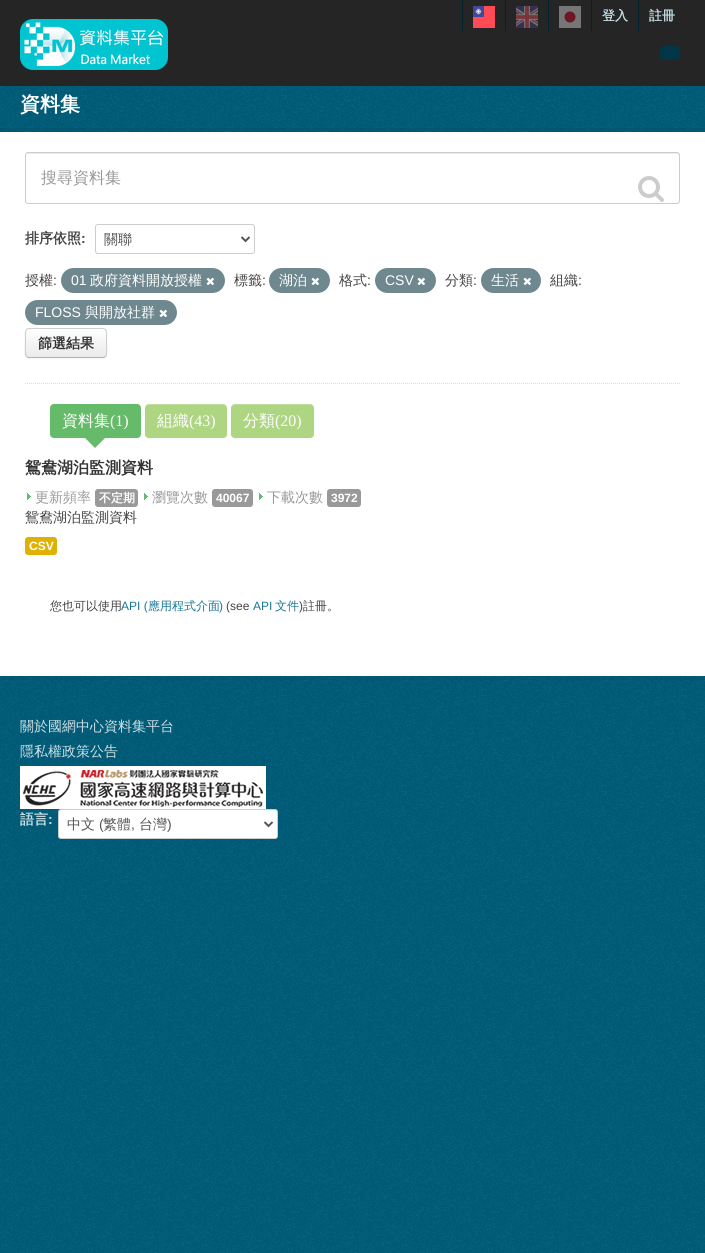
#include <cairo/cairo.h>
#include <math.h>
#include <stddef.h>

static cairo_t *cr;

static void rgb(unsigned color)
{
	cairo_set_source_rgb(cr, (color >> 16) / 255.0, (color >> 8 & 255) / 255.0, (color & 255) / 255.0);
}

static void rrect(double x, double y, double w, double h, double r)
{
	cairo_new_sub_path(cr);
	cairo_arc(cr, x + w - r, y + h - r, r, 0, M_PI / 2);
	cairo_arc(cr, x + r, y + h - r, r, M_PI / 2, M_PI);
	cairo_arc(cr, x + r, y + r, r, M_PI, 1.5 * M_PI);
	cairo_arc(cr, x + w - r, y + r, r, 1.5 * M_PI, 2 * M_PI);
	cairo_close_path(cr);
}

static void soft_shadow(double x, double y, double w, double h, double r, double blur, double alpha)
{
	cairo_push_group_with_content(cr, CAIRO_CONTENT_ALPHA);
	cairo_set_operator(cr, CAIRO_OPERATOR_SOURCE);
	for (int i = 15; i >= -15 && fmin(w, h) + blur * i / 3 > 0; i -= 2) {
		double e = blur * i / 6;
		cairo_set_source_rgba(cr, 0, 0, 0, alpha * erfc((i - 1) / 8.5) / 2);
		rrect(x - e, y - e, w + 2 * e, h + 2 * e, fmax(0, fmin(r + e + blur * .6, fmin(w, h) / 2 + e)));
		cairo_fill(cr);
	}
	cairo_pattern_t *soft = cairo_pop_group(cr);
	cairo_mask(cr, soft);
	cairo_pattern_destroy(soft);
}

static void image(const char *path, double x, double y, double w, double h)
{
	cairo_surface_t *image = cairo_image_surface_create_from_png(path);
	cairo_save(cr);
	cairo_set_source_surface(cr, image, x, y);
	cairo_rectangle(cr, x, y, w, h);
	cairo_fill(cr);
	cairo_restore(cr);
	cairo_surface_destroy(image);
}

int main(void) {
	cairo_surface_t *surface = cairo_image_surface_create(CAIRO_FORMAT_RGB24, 705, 1253);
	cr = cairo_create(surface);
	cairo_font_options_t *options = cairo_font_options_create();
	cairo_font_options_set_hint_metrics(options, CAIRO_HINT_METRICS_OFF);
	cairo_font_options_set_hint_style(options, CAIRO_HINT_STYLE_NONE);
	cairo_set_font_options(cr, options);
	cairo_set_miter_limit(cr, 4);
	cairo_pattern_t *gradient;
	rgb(0x005d7a);
	cairo_paint(cr);
	image("img/1.png", 0, 86, 705, 1167);
	rgb(0x252525);
	cairo_rectangle(cr, 0, 0, 705, 86);
	cairo_fill(cr);
	rgb(0x00232e);
	cairo_rectangle(cr, 462, 0, 1, 31);
	cairo_fill(cr);
	image("img/2.png", 473, 6, 22, 22);
	cairo_rectangle(cr, 505, 0, 1, 31);
	cairo_fill(cr);
	image("img/3.png", 516, 6, 22, 22);
	cairo_rectangle(cr, 548, 0, 1, 31);
	cairo_fill(cr);
	rgb(0x767676);
	cairo_rectangle(cr, 559, 6, 22, 22);
	cairo_fill(cr);
	rgb(0x6d1626);
	cairo_arc(cr, 570, 17, 5.5, 0, 2 * M_PI);
	cairo_fill(cr);
	rgb(0x00232e);
	cairo_rectangle(cr, 591, 0, 1, 31);
	cairo_fill(cr);
	cairo_rectangle(cr, 638, 0, 1, 31);
	cairo_fill(cr);
	image("img/4.png", 20, 19, 148, 51);
	rgb(0x003647);
	rrect(660, 46, 20, 14, 4);
	cairo_fill(cr);
	cairo_rectangle(cr, -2, 130, 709, 548);
	cairo_set_source_rgba(cr, 0, 0, 0, 0.05);
	cairo_set_line_width(cr, 4);
	cairo_stroke(cr);
	rgb(0xffffff);
	cairo_rectangle(cr, 0, 132, 705, 544);
	cairo_fill(cr);
	cairo_new_path(cr);
	cairo_move_to(cr, 25, 383.5);
	cairo_line_to(cr, 680, 383.5);
	rgb(0xdddddd);
	cairo_set_line_width(cr, 1);
	cairo_set_dash(cr, (double[]){1, 1}, 2, 0);
	cairo_stroke(cr);
	rgb(0xececec);
	cairo_new_path(cr);
	cairo_move_to(cr, 28, 154);
	cairo_line_to(cr, 677, 154);
	cairo_curve_to(cr, 678, 154, 679, 155, 679, 156);
	cairo_curve_to(cr, 679, 155, 679, 153, 677, 153);
	cairo_line_to(cr, 28, 153);
	cairo_curve_to(cr, 26, 153, 26, 155, 26, 156);
	cairo_curve_to(cr, 26, 155, 27, 154, 28, 154);
	cairo_close_path(cr);
	cairo_fill(cr);
	rrect(25.5, 152.5, 654, 51, 2.5);
	rgb(0xcccccc);
	cairo_set_dash(cr, NULL, 0, 0);
	cairo_stroke(cr);
	image("img/5.png", 638, 176, 26, 26);
	rrect(95.5, 224.5, 159, 29, 2.5);
	cairo_stroke(cr);
	cairo_new_path(cr);
	cairo_move_to(cr, 241.5, 237);
	cairo_line_to(cr, 245.5, 241);
	cairo_line_to(cr, 249.5, 237);
	rgb(0x555555);
	cairo_set_line_width(cr, 2);
	cairo_stroke(cr);
	rgb(0x6f8890);
	rrect(61, 268, 164, 25, 12.5);
	cairo_fill(cr);
	image("img/6.png", 206, 277, 8, 8);
	rrect(269, 268, 61, 25, 12.5);
	cairo_fill(cr);
	image("img/6.png", 311, 277, 8, 8);
	rrect(375, 268, 61, 25, 12.5);
	cairo_fill(cr);
	image("img/6.png", 417, 277, 8, 8);
	rrect(481, 268, 60, 25, 12.5);
	cairo_fill(cr);
	image("img/6.png", 523, 277, 8, 8);
	rrect(25, 300, 152, 25, 12.5);
	cairo_fill(cr);
	image("img/6.png", 159, 309, 8, 8);
	rgb(0x000000);
	soft_shadow(25, 329, 82, 30, 4, 1, 0.05);
	cairo_save(cr);
	rrect(25, 328, 82, 30, 4);
	cairo_clip(cr);
	gradient = cairo_pattern_create_linear(66, 329, 66, 357);
	cairo_pattern_add_color_stop_rgba(gradient, 0, 1, 1, 1, 1);
	cairo_pattern_add_color_stop_rgba(gradient, 1, 0.918, 0.918, 0.918, 1);
	cairo_set_source(cr, gradient);
	cairo_pattern_destroy(gradient);
	cairo_rectangle(cr, 25, 329, 82, 28);
	cairo_fill(cr);
	cairo_restore(cr);
	cairo_new_path(cr);
	cairo_move_to(cr, 105.5, 356.5);
	cairo_line_to(cr, 103.5, 357.5);
	cairo_line_to(cr, 28.5, 357.5);
	cairo_line_to(cr, 26.5, 356.5);
	rgb(0xb3b3b3);
	cairo_set_line_width(cr, 1);
	cairo_stroke(cr);
	cairo_new_path(cr);
	cairo_move_to(cr, 26.5, 356.5);
	cairo_curve_to(cr, 24.5, 354.5, 25.5, 346, 25.5, 343);
	cairo_curve_to(cr, 25.5, 326, 23.5, 328.5, 41.5, 328.5);
	cairo_line_to(cr, 90.5, 328.5);
	cairo_curve_to(cr, 108.5, 328.5, 106.5, 326, 106.5, 343);
	cairo_curve_to(cr, 106.5, 346, 107.5, 354.5, 105.5, 356.5);
	rgb(0xcccccc);
	cairo_stroke(cr);
	rgb(0x000000);
	soft_shadow(50, 405, 91, 34, 4, 1, 0.05);
	rgb(0x66bb6a);
	rrect(50, 404, 91, 34, 4);
	cairo_fill(cr);
	cairo_new_path(cr);
	cairo_move_to(cr, 85, 438);
	cairo_line_to(cr, 105, 438);
	cairo_line_to(cr, 95, 448);
	cairo_close_path(cr);
	cairo_fill(cr);
	rgb(0x000000);
	soft_shadow(145, 405, 82, 34, 4, 1, 0.05);
	rgb(0xaed581);
	rrect(145, 404, 82, 34, 4);
	cairo_fill(cr);
	cairo_set_source_rgba(cr, 1, 1, 1, 0.2);
	cairo_new_path(cr);
	cairo_move_to(cr, 149, 405);
	cairo_line_to(cr, 223, 405);
	cairo_curve_to(cr, 225, 405, 227, 407, 227, 409);
	cairo_curve_to(cr, 227, 401, 216, 404, 211, 404);
	cairo_line_to(cr, 161, 404);
	cairo_curve_to(cr, 156, 404, 145, 401, 145, 409);
	cairo_curve_to(cr, 145, 407, 147, 405, 149, 405);
	cairo_close_path(cr);
	cairo_fill(cr);
	rgb(0x000000);
	soft_shadow(231, 405, 83, 34, 4, 1, 0.05);
	rgb(0xaed581);
	rrect(231, 404, 83, 34, 4);
	cairo_fill(cr);
	cairo_set_source_rgba(cr, 1, 1, 1, 0.2);
	cairo_new_path(cr);
	cairo_move_to(cr, 235, 405);
	cairo_line_to(cr, 310, 405);
	cairo_curve_to(cr, 312, 405, 314, 407, 314, 409);
	cairo_curve_to(cr, 314, 401, 302, 404, 298, 404);
	cairo_line_to(cr, 248, 404);
	cairo_curve_to(cr, 243, 404, 231, 401, 231, 409);
	cairo_curve_to(cr, 231, 407, 233, 405, 235, 405);
	cairo_close_path(cr);
	cairo_fill(cr);
	image("img/7.png", 27, 493, 4, 7);
	rgb(0x999999);
	rrect(95, 489, 43, 18, 3);
	cairo_fill(cr);
	image("img/7.png", 144, 493, 4, 7);
	rrect(212, 489, 41, 18, 3);
	cairo_fill(cr);
	image("img/7.png", 259, 493, 4, 7);
	rrect(327, 489, 34, 18, 3);
	cairo_fill(cr);
	rgb(0xdfb100);
	rrect(25, 537, 32, 18, 3);
	cairo_fill(cr);
	rgb(0x005d7a);
	cairo_rectangle(cr, 20, 696, 665, 183);
	cairo_fill(cr);
	image("img/8.png", 20, 696, 665, 183);
	image("img/9.png", 20, 766, 246, 43);
	rgb(0xffffff);
	rrect(58.5, 809.5, 219, 29, 2.5);
	cairo_fill_preserve(cr);
	rgb(0xcccccc);
	cairo_stroke(cr);
	cairo_new_path(cr);
	cairo_move_to(cr, 264.5, 822);
	cairo_line_to(cr, 268.5, 826);
	cairo_line_to(cr, 272.5, 822);
	rgb(0x555555);
	cairo_set_line_width(cr, 2);
	cairo_stroke(cr);
	cairo_select_font_face(cr, "WenQuanYi Zen Hei", CAIRO_FONT_SLANT_NORMAL, CAIRO_FONT_WEIGHT_BOLD);
	cairo_set_font_size(cr, 13);
	rgb(0xbfd7de);
	cairo_move_to(cr, 602, 20);
	cairo_show_text(cr, "登入");
	cairo_move_to(cr, 649, 20);
	cairo_show_text(cr, "註冊");
	cairo_set_font_size(cr, 20);
	rgb(0xffffff);
	cairo_move_to(cr, 20, 111);
	cairo_show_text(cr, "資料集");
	cairo_select_font_face(cr, "WenQuanYi Zen Hei Medium", CAIRO_FONT_SLANT_NORMAL, CAIRO_FONT_WEIGHT_NORMAL);
	cairo_set_font_size(cr, 16);
	rgb(0x999999);
	cairo_move_to(cr, 41, 183);
	cairo_show_text(cr, "搜尋資料集");
	cairo_select_font_face(cr, "WenQuanYi Zen Hei", CAIRO_FONT_SLANT_NORMAL, CAIRO_FONT_WEIGHT_BOLD);
	cairo_set_font_size(cr, 14);
	rgb(0x444444);
	cairo_move_to(cr, 25, 243);
	cairo_show_text(cr, "排序依照");
	cairo_select_font_face(cr, "Liberation Sans", CAIRO_FONT_SLANT_NORMAL, CAIRO_FONT_WEIGHT_BOLD);
	cairo_move_to(cr, 81, 243);
	cairo_show_text(cr, ":");
	cairo_select_font_face(cr, "WenQuanYi Zen Hei Medium", CAIRO_FONT_SLANT_NORMAL, CAIRO_FONT_WEIGHT_NORMAL);
	rgb(0x555555);
	cairo_move_to(cr, 104, 244);
	cairo_show_text(cr, "關聯");
	rgb(0x444444);
	cairo_move_to(cr, 25, 285);
	cairo_show_text(cr, "授權");
	cairo_select_font_face(cr, "Liberation Sans", CAIRO_FONT_SLANT_NORMAL, CAIRO_FONT_WEIGHT_NORMAL);
	cairo_move_to(cr, 53, 285);
	cairo_show_text(cr, ":");
	rgb(0xffffff);
	cairo_move_to(cr, 71, 285);
	cairo_show_text(cr, "01");
	cairo_select_font_face(cr, "WenQuanYi Zen Hei Medium", CAIRO_FONT_SLANT_NORMAL, CAIRO_FONT_WEIGHT_NORMAL);
	cairo_move_to(cr, 90, 285);
	cairo_show_text(cr, "政府資料開放授權");
	rgb(0x444444);
	cairo_move_to(cr, 234, 285);
	cairo_show_text(cr, "標籤");
	cairo_select_font_face(cr, "Liberation Sans", CAIRO_FONT_SLANT_NORMAL, CAIRO_FONT_WEIGHT_NORMAL);
	cairo_move_to(cr, 262, 285);
	cairo_show_text(cr, ":");
	cairo_select_font_face(cr, "WenQuanYi Zen Hei Medium", CAIRO_FONT_SLANT_NORMAL, CAIRO_FONT_WEIGHT_NORMAL);
	rgb(0xffffff);
	cairo_move_to(cr, 279, 285);
	cairo_show_text(cr, "湖泊");
	rgb(0x444444);
	cairo_move_to(cr, 339, 285);
	cairo_show_text(cr, "格式");
	cairo_select_font_face(cr, "Liberation Sans", CAIRO_FONT_SLANT_NORMAL, CAIRO_FONT_WEIGHT_NORMAL);
	cairo_move_to(cr, 367, 285);
	cairo_show_text(cr, ":");
	rgb(0xffffff);
	cairo_move_to(cr, 385, 285);
	cairo_show_text(cr, "CSV");
	cairo_select_font_face(cr, "WenQuanYi Zen Hei Medium", CAIRO_FONT_SLANT_NORMAL, CAIRO_FONT_WEIGHT_NORMAL);
	rgb(0x444444);
	cairo_move_to(cr, 445, 285);
	cairo_show_text(cr, "分類");
	cairo_select_font_face(cr, "Liberation Sans", CAIRO_FONT_SLANT_NORMAL, CAIRO_FONT_WEIGHT_NORMAL);
	cairo_move_to(cr, 473, 285);
	cairo_show_text(cr, ":");
	cairo_select_font_face(cr, "WenQuanYi Zen Hei Medium", CAIRO_FONT_SLANT_NORMAL, CAIRO_FONT_WEIGHT_NORMAL);
	rgb(0xffffff);
	cairo_move_to(cr, 491, 285);
	cairo_show_text(cr, "生活");
	rgb(0x444444);
	cairo_move_to(cr, 550, 285);
	cairo_show_text(cr, "組織");
	cairo_select_font_face(cr, "Liberation Sans", CAIRO_FONT_SLANT_NORMAL, CAIRO_FONT_WEIGHT_NORMAL);
	cairo_move_to(cr, 578, 285);
	cairo_show_text(cr, ":");
	rgb(0xffffff);
	cairo_move_to(cr, 35, 317);
	cairo_show_text(cr, "FLOSS");
	cairo_select_font_face(cr, "WenQuanYi Zen Hei Medium", CAIRO_FONT_SLANT_NORMAL, CAIRO_FONT_WEIGHT_NORMAL);
	cairo_move_to(cr, 85, 317);
	cairo_show_text(cr, "與開放社群");
	cairo_select_font_face(cr, "WenQuanYi Zen Hei", CAIRO_FONT_SLANT_NORMAL, CAIRO_FONT_WEIGHT_BOLD);
	rgb(0x333333);
	cairo_move_to(cr, 38, 348);
	cairo_show_text(cr, "篩選結果");
	cairo_select_font_face(cr, "WenQuanYi Zen Hei Medium", CAIRO_FONT_SLANT_NORMAL, CAIRO_FONT_WEIGHT_NORMAL);
	cairo_set_font_size(cr, 16);
	rgb(0xffffff);
	cairo_move_to(cr, 62, 426);
	cairo_show_text(cr, "資料集");
	cairo_select_font_face(cr, "Liberation Serif", CAIRO_FONT_SLANT_NORMAL, CAIRO_FONT_WEIGHT_NORMAL);
	cairo_move_to(cr, 110, 426);
	cairo_show_text(cr, "(1)");
	cairo_select_font_face(cr, "WenQuanYi Zen Hei Medium", CAIRO_FONT_SLANT_NORMAL, CAIRO_FONT_WEIGHT_NORMAL);
	cairo_move_to(cr, 157, 426);
	cairo_show_text(cr, "組織");
	cairo_select_font_face(cr, "Liberation Serif", CAIRO_FONT_SLANT_NORMAL, CAIRO_FONT_WEIGHT_NORMAL);
	cairo_move_to(cr, 189, 426);
	cairo_show_text(cr, "(43)");
	cairo_select_font_face(cr, "WenQuanYi Zen Hei Medium", CAIRO_FONT_SLANT_NORMAL, CAIRO_FONT_WEIGHT_NORMAL);
	cairo_move_to(cr, 243, 426);
	cairo_show_text(cr, "分類");
	cairo_select_font_face(cr, "Liberation Serif", CAIRO_FONT_SLANT_NORMAL, CAIRO_FONT_WEIGHT_NORMAL);
	cairo_move_to(cr, 275, 426);
	cairo_show_text(cr, "(20)");
	cairo_select_font_face(cr, "WenQuanYi Zen Hei", CAIRO_FONT_SLANT_NORMAL, CAIRO_FONT_WEIGHT_BOLD);
	rgb(0x333333);
	cairo_move_to(cr, 25, 473);
	cairo_show_text(cr, "鴛鴦湖泊監測資料");
	cairo_select_font_face(cr, "WenQuanYi Zen Hei Medium", CAIRO_FONT_SLANT_NORMAL, CAIRO_FONT_WEIGHT_NORMAL);
	cairo_set_font_size(cr, 14);
	rgb(0x999999);
	cairo_move_to(cr, 35, 502);
	cairo_show_text(cr, "更新頻率");
	cairo_select_font_face(cr, "WenQuanYi Zen Hei", CAIRO_FONT_SLANT_NORMAL, CAIRO_FONT_WEIGHT_BOLD);
	cairo_set_font_size(cr, 12);
	rgb(0xffffff);
	cairo_move_to(cr, 99, 502);
	cairo_show_text(cr, "不定期");
	cairo_select_font_face(cr, "WenQuanYi Zen Hei Medium", CAIRO_FONT_SLANT_NORMAL, CAIRO_FONT_WEIGHT_NORMAL);
	cairo_set_font_size(cr, 14);
	rgb(0x999999);
	cairo_move_to(cr, 152, 502);
	cairo_show_text(cr, "瀏覽次數");
	cairo_select_font_face(cr, "Liberation Sans", CAIRO_FONT_SLANT_NORMAL, CAIRO_FONT_WEIGHT_BOLD);
	cairo_set_font_size(cr, 12);
	rgb(0xffffff);
	cairo_move_to(cr, 216, 502);
	cairo_show_text(cr, "40067");
	cairo_select_font_face(cr, "WenQuanYi Zen Hei Medium", CAIRO_FONT_SLANT_NORMAL, CAIRO_FONT_WEIGHT_NORMAL);
	cairo_set_font_size(cr, 14);
	rgb(0x999999);
	cairo_move_to(cr, 267, 502);
	cairo_show_text(cr, "下載次數");
	cairo_select_font_face(cr, "Liberation Sans", CAIRO_FONT_SLANT_NORMAL, CAIRO_FONT_WEIGHT_BOLD);
	cairo_set_font_size(cr, 12);
	rgb(0xffffff);
	cairo_move_to(cr, 331, 502);
	cairo_show_text(cr, "3972");
	cairo_select_font_face(cr, "WenQuanYi Zen Hei Medium", CAIRO_FONT_SLANT_NORMAL, CAIRO_FONT_WEIGHT_NORMAL);
	cairo_set_font_size(cr, 14);
	rgb(0x444444);
	cairo_move_to(cr, 25, 522);
	cairo_show_text(cr, "鴛鴦湖泊監測資料");
	cairo_select_font_face(cr, "Liberation Sans", CAIRO_FONT_SLANT_NORMAL, CAIRO_FONT_WEIGHT_BOLD);
	cairo_set_font_size(cr, 12);
	rgb(0xffffff);
	cairo_move_to(cr, 29, 550);
	cairo_show_text(cr, "CSV");
	cairo_select_font_face(cr, "WenQuanYi Zen Hei Medium", CAIRO_FONT_SLANT_NORMAL, CAIRO_FONT_WEIGHT_NORMAL);
	rgb(0x444444);
	cairo_move_to(cr, 50, 610);
	cairo_show_text(cr, "您也可以使用");
	cairo_select_font_face(cr, "Liberation Sans", CAIRO_FONT_SLANT_NORMAL, CAIRO_FONT_WEIGHT_NORMAL);
	rgb(0x187794);
	cairo_move_to(cr, 121, 610);
	cairo_show_text(cr, "API (");
	cairo_select_font_face(cr, "WenQuanYi Zen Hei Medium", CAIRO_FONT_SLANT_NORMAL, CAIRO_FONT_WEIGHT_NORMAL);
	cairo_move_to(cr, 148, 610);
	cairo_show_text(cr, "應用程式介面");
	cairo_select_font_face(cr, "Liberation Sans", CAIRO_FONT_SLANT_NORMAL, CAIRO_FONT_WEIGHT_NORMAL);
	cairo_move_to(cr, 219, 610);
	cairo_show_text(cr, ")");
	rgb(0x444444);
	cairo_move_to(cr, 226, 610);
	cairo_show_text(cr, "(see");
	rgb(0x187794);
	cairo_move_to(cr, 253, 610);
	cairo_show_text(cr, "API");
	cairo_select_font_face(cr, "WenQuanYi Zen Hei Medium", CAIRO_FONT_SLANT_NORMAL, CAIRO_FONT_WEIGHT_NORMAL);
	cairo_move_to(cr, 275, 610);
	cairo_show_text(cr, "文件");
	cairo_select_font_face(cr, "Liberation Sans", CAIRO_FONT_SLANT_NORMAL, CAIRO_FONT_WEIGHT_NORMAL);
	rgb(0x444444);
	cairo_move_to(cr, 299, 610);
	cairo_show_text(cr, ")");
	cairo_select_font_face(cr, "WenQuanYi Zen Hei Medium", CAIRO_FONT_SLANT_NORMAL, CAIRO_FONT_WEIGHT_NORMAL);
	cairo_move_to(cr, 303, 610);
	cairo_show_text(cr, "註冊。");
	cairo_set_font_size(cr, 14);
	rgb(0xccdee3);
	cairo_move_to(cr, 20, 731);
	cairo_show_text(cr, "關於國網中心資料集平台");
	cairo_move_to(cr, 20, 756);
	cairo_show_text(cr, "隱私權政策公告");
	cairo_select_font_face(cr, "WenQuanYi Zen Hei", CAIRO_FONT_SLANT_NORMAL, CAIRO_FONT_WEIGHT_BOLD);
	cairo_move_to(cr, 20, 824);
	cairo_show_text(cr, "語言");
	cairo_select_font_face(cr, "Liberation Sans", CAIRO_FONT_SLANT_NORMAL, CAIRO_FONT_WEIGHT_BOLD);
	cairo_move_to(cr, 48, 824);
	cairo_show_text(cr, ":");
	cairo_select_font_face(cr, "WenQuanYi Zen Hei Medium", CAIRO_FONT_SLANT_NORMAL, CAIRO_FONT_WEIGHT_NORMAL);
	rgb(0x555555);
	cairo_move_to(cr, 67, 829);
	cairo_show_text(cr, "中文");
	cairo_select_font_face(cr, "Liberation Sans", CAIRO_FONT_SLANT_NORMAL, CAIRO_FONT_WEIGHT_NORMAL);
	cairo_move_to(cr, 99, 829);
	cairo_show_text(cr, "(");
	cairo_select_font_face(cr, "WenQuanYi Zen Hei Medium", CAIRO_FONT_SLANT_NORMAL, CAIRO_FONT_WEIGHT_NORMAL);
	cairo_move_to(cr, 103, 829);
	cairo_show_text(cr, "繁體");
	cairo_select_font_face(cr, "Liberation Sans", CAIRO_FONT_SLANT_NORMAL, CAIRO_FONT_WEIGHT_NORMAL);
	cairo_move_to(cr, 131, 829);
	cairo_show_text(cr, ",");
	cairo_select_font_face(cr, "WenQuanYi Zen Hei Medium", CAIRO_FONT_SLANT_NORMAL, CAIRO_FONT_WEIGHT_NORMAL);
	cairo_move_to(cr, 139, 829);
	cairo_show_text(cr, "台灣");
	cairo_select_font_face(cr, "Liberation Sans", CAIRO_FONT_SLANT_NORMAL, CAIRO_FONT_WEIGHT_NORMAL);
	cairo_move_to(cr, 167, 829);
	cairo_show_text(cr, ")");
	cairo_surface_write_to_png(surface, "page.png");
	cairo_font_options_destroy(options);
	cairo_destroy(cr);
	cairo_surface_destroy(surface);
	return 0;
}
